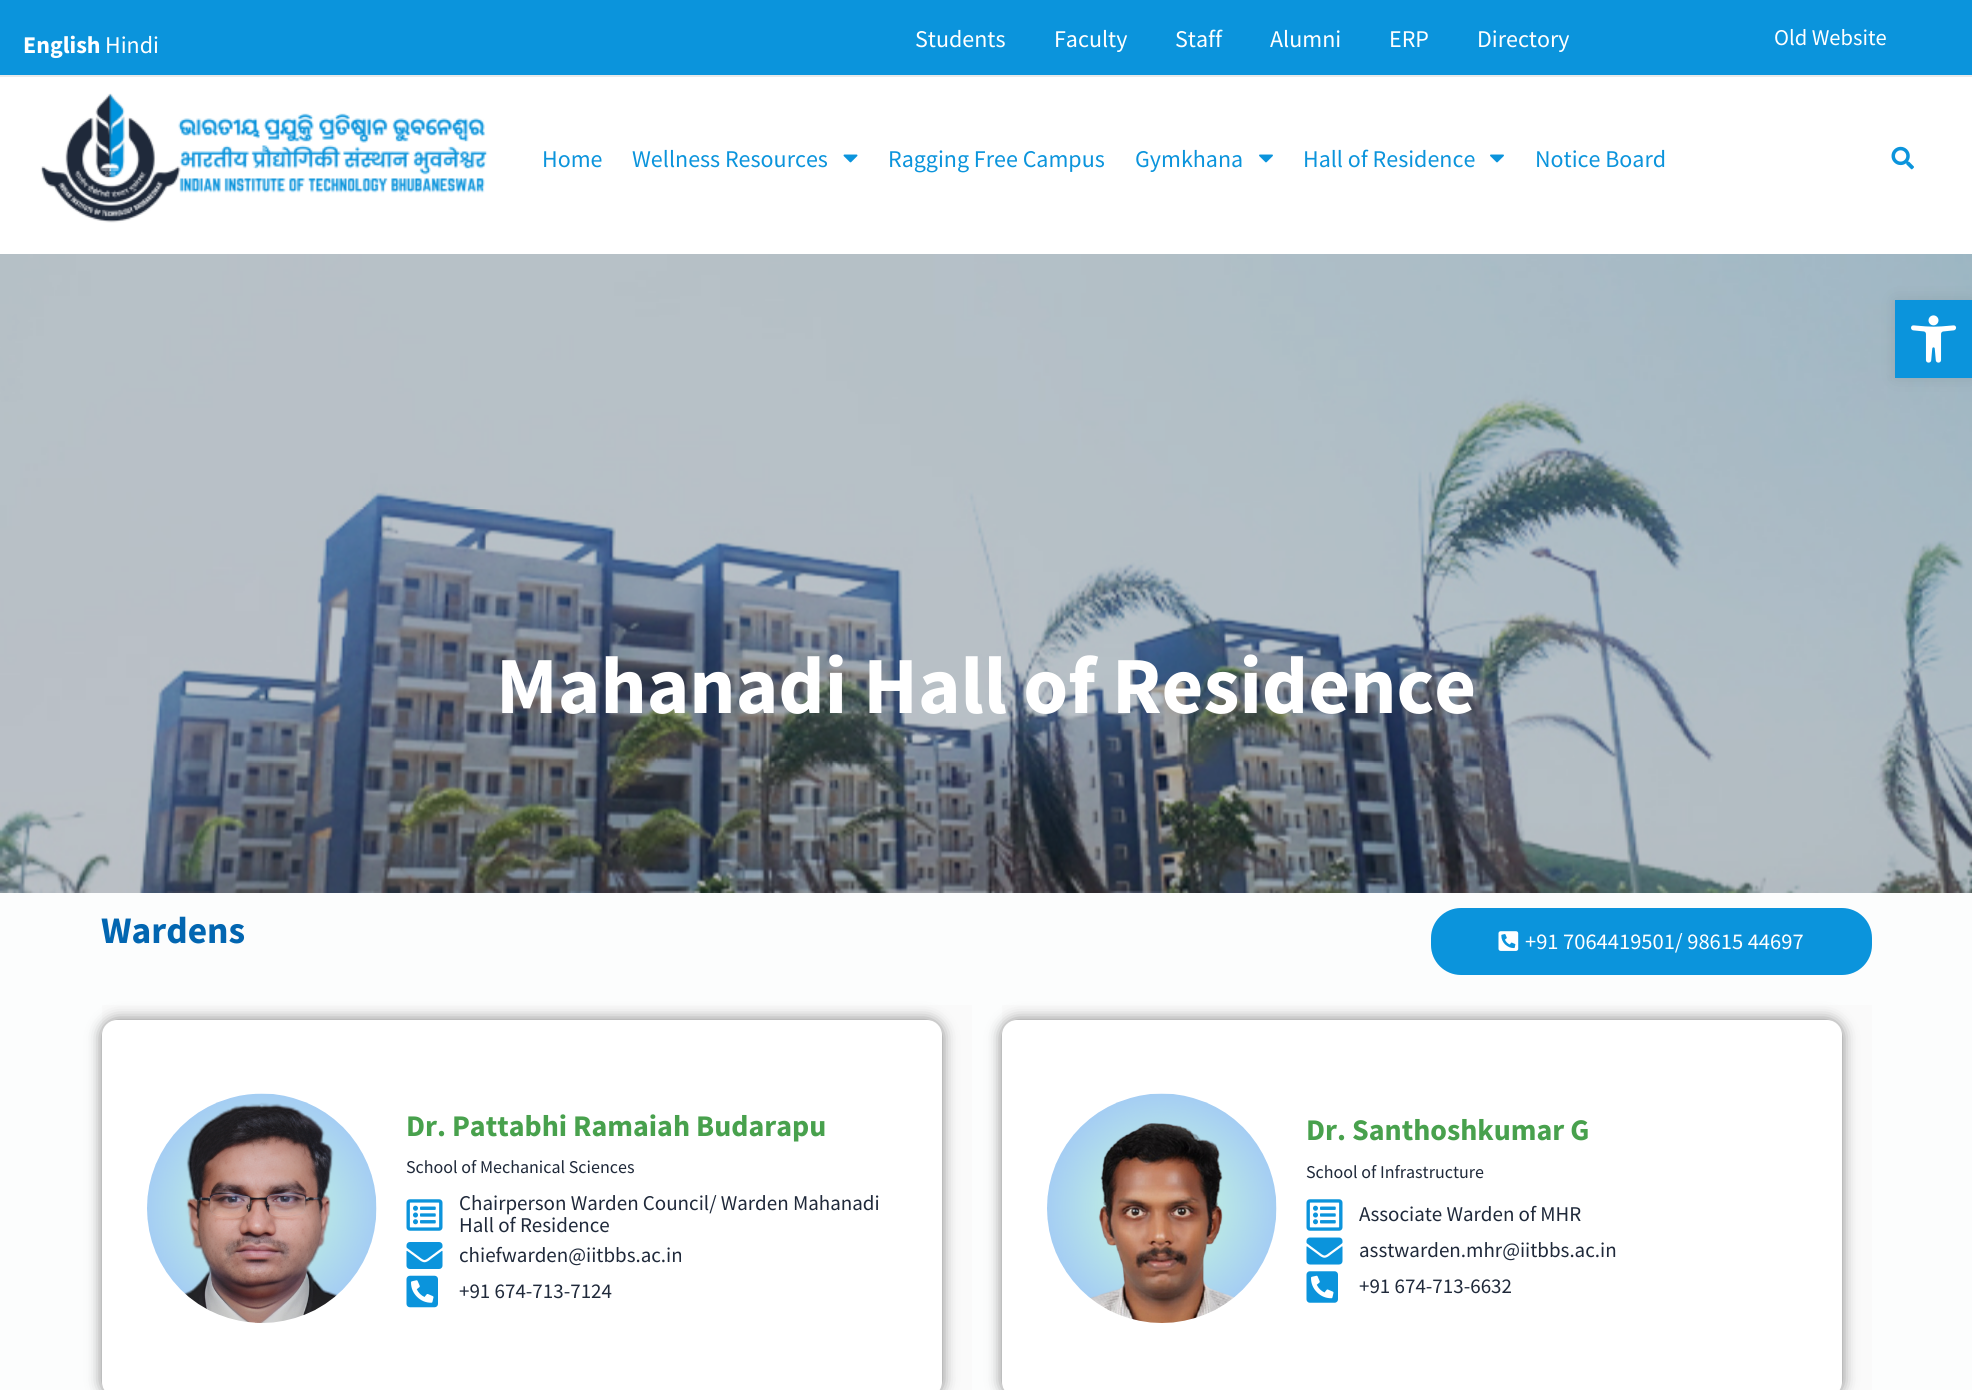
#include <cairo/cairo.h>
#include <math.h>
#include <stddef.h>

typedef struct { double x, y; const char *s; } line_t;
typedef struct { double x, y, w, h; unsigned color; } box_t;
static cairo_t *cr;

static void rgb(unsigned color)
{
	cairo_set_source_rgb(cr, (color >> 16) / 255.0, (color >> 8 & 255) / 255.0, (color & 255) / 255.0);
}

static void rrect(double x, double y, double w, double h, double r)
{
	cairo_new_sub_path(cr);
	cairo_arc(cr, x + w - r, y + h - r, r, 0, M_PI / 2);
	cairo_arc(cr, x + r, y + h - r, r, M_PI / 2, M_PI);
	cairo_arc(cr, x + r, y + r, r, M_PI, 1.5 * M_PI);
	cairo_arc(cr, x + w - r, y + r, r, 1.5 * M_PI, 2 * M_PI);
	cairo_close_path(cr);
}

static void soft_shadow(double x, double y, double w, double h, double r, double blur, double alpha)
{
	cairo_push_group_with_content(cr, CAIRO_CONTENT_ALPHA);
	cairo_set_operator(cr, CAIRO_OPERATOR_SOURCE);
	for (int i = 15; i >= -15 && fmin(w, h) + blur * i / 3 > 0; i -= 2) {
		double e = blur * i / 6;
		cairo_set_source_rgba(cr, 0, 0, 0, alpha * erfc((i - 1) / 8.5) / 2);
		rrect(x - e, y - e, w + 2 * e, h + 2 * e, fmax(0, fmin(r + e + blur * .6, fmin(w, h) / 2 + e)));
		cairo_fill(cr);
	}
	cairo_pattern_t *soft = cairo_pop_group(cr);
	cairo_mask(cr, soft);
	cairo_pattern_destroy(soft);
}

static void image(const char *path, double x, double y, double w, double h)
{
	cairo_surface_t *image = cairo_image_surface_create_from_png(path);
	cairo_save(cr);
	cairo_set_source_surface(cr, image, x, y);
	cairo_rectangle(cr, x, y, w, h);
	cairo_fill(cr);
	cairo_restore(cr);
	cairo_surface_destroy(image);
}

int main(void) {
	cairo_surface_t *surface = cairo_image_surface_create(CAIRO_FORMAT_RGB24, 1972, 1390);
	cr = cairo_create(surface);
	cairo_font_options_t *options = cairo_font_options_create();
	cairo_font_options_set_hint_metrics(options, CAIRO_HINT_METRICS_OFF);
	cairo_font_options_set_hint_style(options, CAIRO_HINT_STYLE_NONE);
	cairo_set_font_options(cr, options);
	cairo_set_miter_limit(cr, 4);
	rgb(0xfcfdfd);
	cairo_paint(cr);
	{
		static const box_t items[] = {
			{0, 0, 1972, 75, 0x0b94dc},
			{0, 75, 1972, 2, 0xeaeaea},
			{0, 77, 1972, 177, 0xffffff},
		};
		for (size_t i = 0; i < sizeof items / sizeof *items; i++) {
			rgb(items[i].color);
			cairo_rectangle(cr, items[i].x, items[i].y, items[i].w, items[i].h);
			cairo_fill(cr);
		}
	}
	image("img/1.png", 40, 93, 448, 130);
	image("img/2.png", 843, 154, 15, 9);
	image("img/3.png", 1259, 154, 14, 9);
	image("img/3.png", 1490, 154, 14, 9);
	image("img/4.png", 1891, 146, 23, 24);
	image("img/5.png", 0, 254, 1972, 639);
	rgb(0x0b94dc);
	rrect(1431, 908, 441, 67, 30);
	cairo_fill(cr);
	image("img/6.png", 1498, 931, 21, 20);
	rgb(0xfafafa);
	cairo_rectangle(cr, 102, 1005, 870, 385);
	cairo_fill(cr);
	rgb(0x000000);
	soft_shadow(102, 1020, 840, 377, 15, 7.5, 0.5);
	rgb(0xffffff);
	rrect(102, 1020, 840, 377, 15);
	cairo_fill(cr);
	image("img/7.png", 147, 1093, 230, 230);
	image("img/8.png", 406, 1199, 37, 32);
	image("img/9.png", 406, 1242, 37, 27);
	image("img/10.png", 406, 1275, 32, 33);
	rgb(0xfafafa);
	cairo_rectangle(cr, 1002, 1005, 870, 385);
	cairo_fill(cr);
	rgb(0x000000);
	soft_shadow(1002, 1020, 840, 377, 15, 7.5, 0.5);
	rgb(0xffffff);
	rrect(1002, 1020, 840, 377, 15);
	cairo_fill(cr);
	image("img/11.png", 1047, 1093, 230, 230);
	image("img/8.png", 1306, 1199, 37, 32);
	image("img/12.png", 1306, 1237, 37, 28);
	image("img/13.png", 1306, 1271, 32, 32);
	rgb(0x000000);
	soft_shadow(1895, 300, 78, 78, 0, 7.5, 0.1);
	rgb(0x0b94dc);
	cairo_rectangle(cr, 1895, 300, 77, 78);
	cairo_fill(cr);
	image("img/14.png", 1911, 315, 46, 48);
	cairo_select_font_face(cr, "Source Sans Pro", CAIRO_FONT_SLANT_NORMAL, CAIRO_FONT_WEIGHT_BOLD);
	cairo_set_font_size(cr, 24);
	rgb(0xffffff);
	cairo_move_to(cr, 23, 53);
	cairo_show_text(cr, "English");
	cairo_select_font_face(cr, "Source Sans Pro", CAIRO_FONT_SLANT_NORMAL, CAIRO_FONT_WEIGHT_NORMAL);
	{
		static const line_t items[] = {
			{105, 53, "Hindi"},
			{915, 47, "Students"},
			{1054, 47, "Faculty"},
			{1175, 47, "Staff"},
			{1270, 47, "Alumni"},
			{1389, 47, "ERP"},
			{1477, 47, "Directory"},
		};
		for (size_t i = 0; i < sizeof items / sizeof *items; i++) {
			cairo_move_to(cr, items[i].x, items[i].y);
			cairo_show_text(cr, items[i].s);
		}
	}
	cairo_set_font_size(cr, 22.5);
	cairo_move_to(cr, 1774, 45);
	cairo_show_text(cr, "Old Website");
	cairo_set_font_size(cr, 24);
	rgb(0x0b94dc);
	{
		static const line_t items[] = {
			{542, 167, "Home"},
			{632, 167, "Wellness Resources"},
			{888, 167, "Ragging Free Campus"},
			{1135, 167, "Gymkhana"},
			{1303, 167, "Hall of Residence"},
			{1535, 167, "Notice Board"},
		};
		for (size_t i = 0; i < sizeof items / sizeof *items; i++) {
			cairo_move_to(cr, items[i].x, items[i].y);
			cairo_show_text(cr, items[i].s);
		}
	}
	cairo_select_font_face(cr, "Source Sans Pro", CAIRO_FONT_SLANT_NORMAL, CAIRO_FONT_WEIGHT_BOLD);
	cairo_set_font_size(cr, 81);
	rgb(0xffffff);
	cairo_move_to(cr, 496, 713);
	cairo_show_text(cr, "Mahanadi Hall of Residence");
	cairo_set_font_size(cr, 37.5);
	rgb(0x0266b1);
	cairo_move_to(cr, 101, 943);
	cairo_show_text(cr, "Wardens");
	cairo_select_font_face(cr, "Source Sans Pro", CAIRO_FONT_SLANT_NORMAL, CAIRO_FONT_WEIGHT_NORMAL);
	cairo_set_font_size(cr, 22.5);
	rgb(0xffffff);
	cairo_move_to(cr, 1525, 949);
	cairo_show_text(cr, "+91 7064419501/ 98615 44697");
	cairo_select_font_face(cr, "Source Sans Pro", CAIRO_FONT_SLANT_NORMAL, CAIRO_FONT_WEIGHT_BOLD);
	cairo_set_font_size(cr, 30);
	rgb(0x48a14d);
	cairo_move_to(cr, 406, 1136);
	cairo_show_text(cr, "Dr. Pattabhi Ramaiah Budarapu");
	cairo_select_font_face(cr, "Source Sans Pro", CAIRO_FONT_SLANT_NORMAL, CAIRO_FONT_WEIGHT_NORMAL);
	cairo_set_font_size(cr, 18);
	rgb(0x1f293a);
	cairo_move_to(cr, 406, 1173);
	cairo_show_text(cr, "School of Mechanical Sciences");
	cairo_set_font_size(cr, 21);
	{
		static const line_t items[] = {
			{459, 1210, "Chairperson Warden Council/ Warden Mahanadi"},
			{459, 1232, "Hall of Residence"},
			{459, 1262, "chiefwarden@iitbbs.ac.in"},
			{459, 1298, "+91 674-713-7124"},
		};
		for (size_t i = 0; i < sizeof items / sizeof *items; i++) {
			cairo_move_to(cr, items[i].x, items[i].y);
			cairo_show_text(cr, items[i].s);
		}
	}
	cairo_select_font_face(cr, "Source Sans Pro", CAIRO_FONT_SLANT_NORMAL, CAIRO_FONT_WEIGHT_BOLD);
	cairo_set_font_size(cr, 30);
	rgb(0x48a14d);
	cairo_move_to(cr, 1306, 1140);
	cairo_show_text(cr, "Dr. Santhoshkumar G");
	cairo_select_font_face(cr, "Source Sans Pro", CAIRO_FONT_SLANT_NORMAL, CAIRO_FONT_WEIGHT_NORMAL);
	cairo_set_font_size(cr, 18);
	rgb(0x1f293a);
	cairo_move_to(cr, 1306, 1178);
	cairo_show_text(cr, "School of Infrastructure");
	cairo_set_font_size(cr, 21);
	{
		static const line_t items[] = {
			{1359, 1221, "Associate Warden of MHR"},
			{1359, 1257, "asstwarden.mhr@iitbbs.ac.in"},
			{1359, 1293, "+91 674-713-6632"},
		};
		for (size_t i = 0; i < sizeof items / sizeof *items; i++) {
			cairo_move_to(cr, items[i].x, items[i].y);
			cairo_show_text(cr, items[i].s);
		}
	}
	cairo_surface_write_to_png(surface, "page.png");
	cairo_font_options_destroy(options);
	cairo_destroy(cr);
	cairo_surface_destroy(surface);
	return 0;
}
